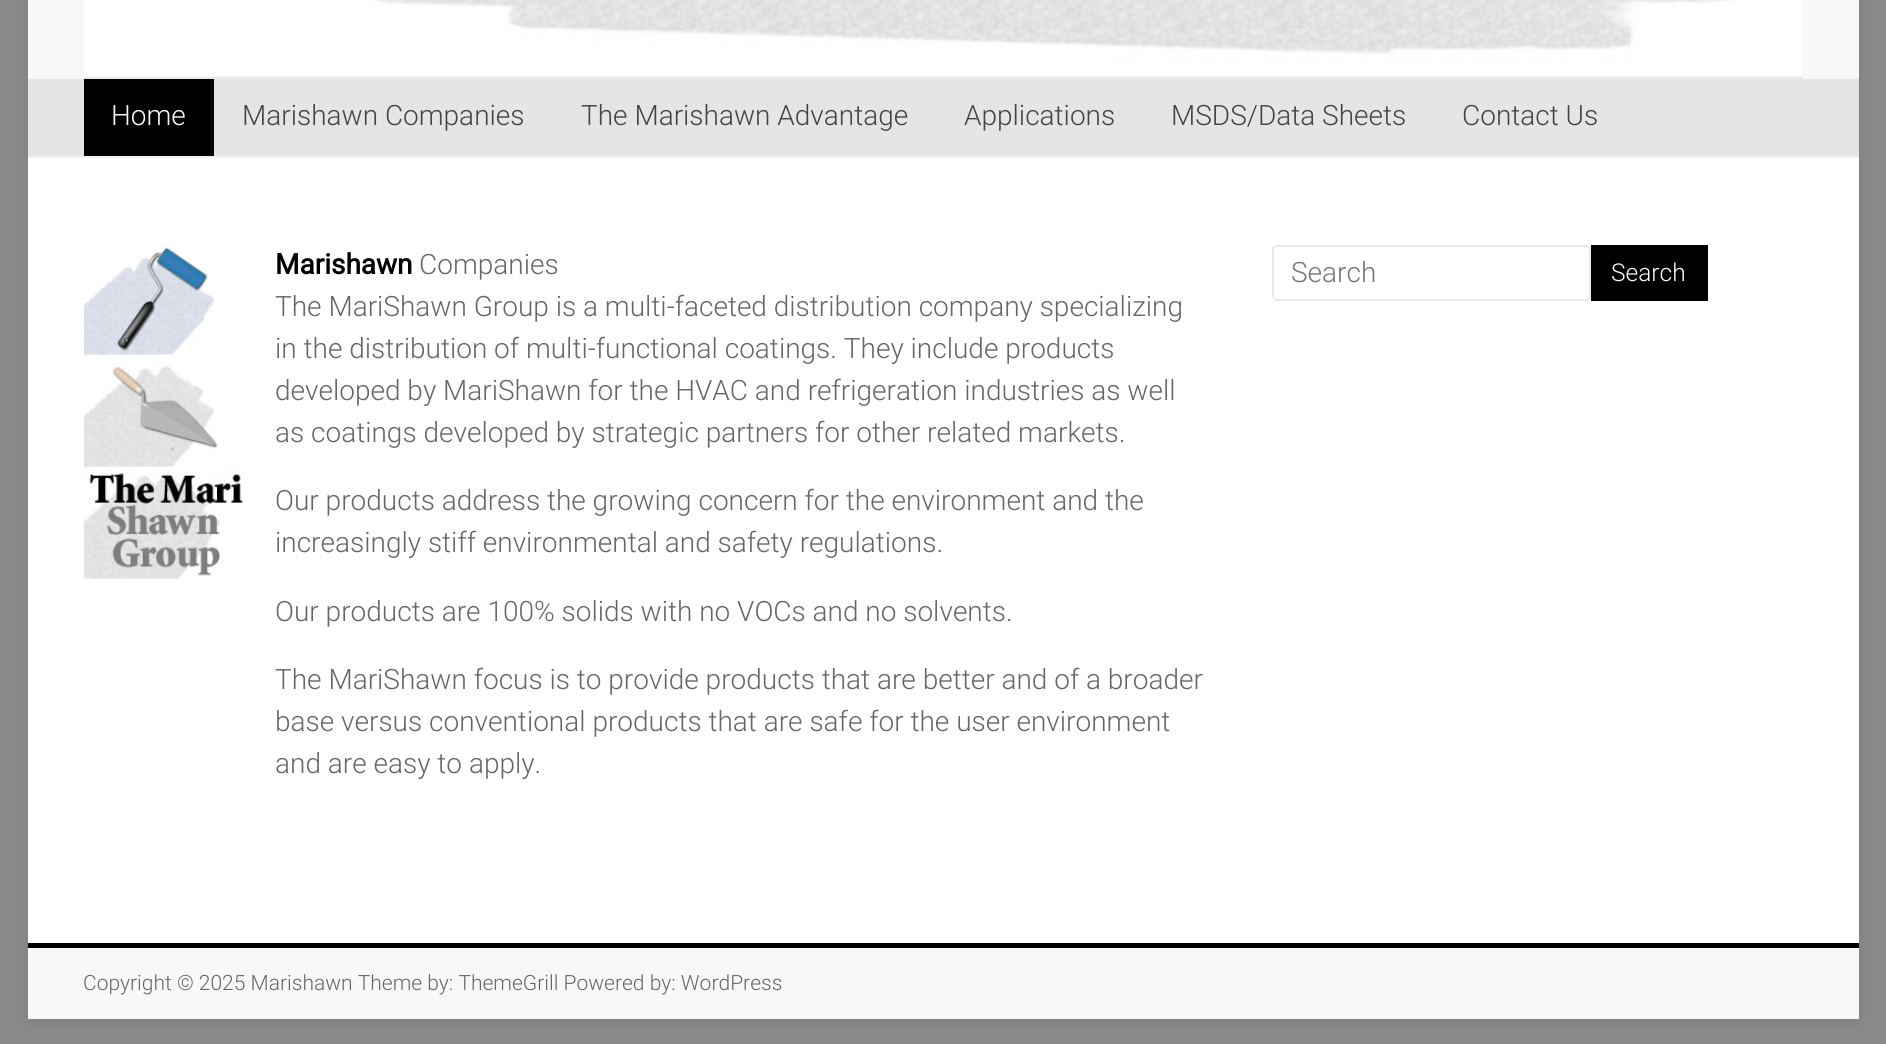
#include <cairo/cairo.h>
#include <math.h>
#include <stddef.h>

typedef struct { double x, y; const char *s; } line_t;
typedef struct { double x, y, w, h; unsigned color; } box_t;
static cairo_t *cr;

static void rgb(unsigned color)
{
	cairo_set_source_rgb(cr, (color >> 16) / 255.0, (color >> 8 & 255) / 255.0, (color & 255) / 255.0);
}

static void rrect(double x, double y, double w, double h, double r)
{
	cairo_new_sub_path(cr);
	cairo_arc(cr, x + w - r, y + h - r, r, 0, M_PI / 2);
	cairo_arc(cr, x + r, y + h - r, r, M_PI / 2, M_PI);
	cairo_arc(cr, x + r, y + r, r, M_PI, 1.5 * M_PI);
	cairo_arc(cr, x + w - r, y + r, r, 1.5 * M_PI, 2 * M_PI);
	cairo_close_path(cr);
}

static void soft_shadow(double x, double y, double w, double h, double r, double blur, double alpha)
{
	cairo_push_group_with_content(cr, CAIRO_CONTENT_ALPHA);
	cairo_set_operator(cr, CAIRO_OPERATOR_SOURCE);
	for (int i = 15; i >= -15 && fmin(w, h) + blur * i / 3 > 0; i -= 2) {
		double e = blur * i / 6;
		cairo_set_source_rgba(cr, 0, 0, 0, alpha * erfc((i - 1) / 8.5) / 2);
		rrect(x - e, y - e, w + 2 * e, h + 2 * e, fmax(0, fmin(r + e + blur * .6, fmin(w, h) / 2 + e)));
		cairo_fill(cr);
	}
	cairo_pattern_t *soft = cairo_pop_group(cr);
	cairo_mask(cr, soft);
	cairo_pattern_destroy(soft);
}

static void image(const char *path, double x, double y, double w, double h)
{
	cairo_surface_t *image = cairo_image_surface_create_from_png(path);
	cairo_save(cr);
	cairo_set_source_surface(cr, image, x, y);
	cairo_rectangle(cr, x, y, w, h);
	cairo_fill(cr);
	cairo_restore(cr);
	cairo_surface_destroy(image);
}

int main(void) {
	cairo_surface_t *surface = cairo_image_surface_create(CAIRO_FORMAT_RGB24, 1886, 1044);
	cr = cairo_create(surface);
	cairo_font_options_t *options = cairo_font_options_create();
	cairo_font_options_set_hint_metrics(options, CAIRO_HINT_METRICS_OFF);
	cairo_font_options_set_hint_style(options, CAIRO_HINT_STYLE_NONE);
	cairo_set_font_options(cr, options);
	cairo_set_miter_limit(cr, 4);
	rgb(0x898989);
	cairo_paint(cr);
	rgb(0x646464);
	soft_shadow(28, -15, 1831, 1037, 0, 5, 0.3);
	{
		static const box_t items[] = {
			{28, 158, 1831, 785, 0xffffff},
			{28, 0, 1831, 79, 0xf8f8f8},
			{28, 156, 1831, 2, 0xf2f2f2},
		};
		for (size_t i = 0; i < sizeof items / sizeof *items; i++) {
			rgb(items[i].color);
			cairo_rectangle(cr, items[i].x, items[i].y, items[i].w, items[i].h);
			cairo_fill(cr);
		}
	}
	image("img/1.png", 84, 0, 1718, 76);
	{
		static const box_t items[] = {
			{84, 77, 1719, 2, 0xeaeaea},
			{28, 79, 1831, 77, 0xe5e5e5},
			{84, 79, 130, 77, 0x000000},
		};
		for (size_t i = 0; i < sizeof items / sizeof *items; i++) {
			rgb(items[i].color);
			cairo_rectangle(cr, items[i].x, items[i].y, items[i].w, items[i].h);
			cairo_fill(cr);
		}
	}
	image("img/2.png", 84, 244, 131, 111);
	image("img/3.png", 84, 354, 134, 113);
	image("img/4.png", 84, 466, 159, 113);
	rrect(1273, 246, 317, 54, 4);
	rgb(0xeaeaea);
	cairo_stroke(cr);
	{
		static const box_t items[] = {
			{1591, 245, 117, 56, 0x000000},
			{28, 948, 1831, 71, 0xf8f8f8},
			{28, 943, 1831, 5, 0x000000},
		};
		for (size_t i = 0; i < sizeof items / sizeof *items; i++) {
			rgb(items[i].color);
			cairo_rectangle(cr, items[i].x, items[i].y, items[i].w, items[i].h);
			cairo_fill(cr);
		}
	}
	cairo_select_font_face(cr, "Roboto Light", CAIRO_FONT_SLANT_NORMAL, CAIRO_FONT_WEIGHT_NORMAL);
	cairo_set_font_size(cr, 28);
	rgb(0xffffff);
	cairo_move_to(cr, 111, 125);
	cairo_show_text(cr, "Home");
	rgb(0x444444);
	{
		static const line_t items[] = {
			{242, 125, "Marishawn Companies"},
			{581, 125, "The Marishawn Advantage"},
			{964, 125, "Applications"},
			{1171, 125, "MSDS/Data Sheets"},
			{1462, 125, "Contact Us"},
		};
		for (size_t i = 0; i < sizeof items / sizeof *items; i++) {
			cairo_move_to(cr, items[i].x, items[i].y);
			cairo_show_text(cr, items[i].s);
		}
	}
	cairo_select_font_face(cr, "Roboto", CAIRO_FONT_SLANT_NORMAL, CAIRO_FONT_WEIGHT_BOLD);
	rgb(0x000000);
	cairo_move_to(cr, 275, 274);
	cairo_show_text(cr, "Marishawn");
	cairo_select_font_face(cr, "Roboto Light", CAIRO_FONT_SLANT_NORMAL, CAIRO_FONT_WEIGHT_NORMAL);
	rgb(0x666666);
	{
		static const line_t items[] = {
			{419, 274, "Companies"},
			{275, 316, "The MariShawn Group is a multi-faceted distribution company specializing"},
			{275, 358, "in the distribution of multi-functional coatings. They include products"},
			{275, 400, "developed by MariShawn for the HVAC and refrigeration industries as well"},
			{275, 442, "as coatings developed by strategic partners for other related markets."},
			{275, 510, "Our products address the growing concern for the environment and the"},
			{275, 552, "increasingly stiff environmental and safety regulations."},
			{275, 621, "Our products are 100% solids with no VOCs and no solvents."},
			{275, 689, "The MariShawn focus is to provide products that are better and of a broader"},
			{275, 731, "base versus conventional products that are safe for the user environment"},
			{275, 773, "and are easy to apply."},
		};
		for (size_t i = 0; i < sizeof items / sizeof *items; i++) {
			cairo_move_to(cr, items[i].x, items[i].y);
			cairo_show_text(cr, items[i].s);
		}
	}
	rgb(0x757575);
	cairo_move_to(cr, 1291, 282);
	cairo_show_text(cr, "Search");
	cairo_set_font_size(cr, 24.5);
	rgb(0xffffff);
	cairo_move_to(cr, 1611, 281);
	cairo_show_text(cr, "Search");
	cairo_set_font_size(cr, 21);
	rgb(0x666666);
	cairo_move_to(cr, 83, 990);
	cairo_show_text(cr, "Copyright © 2025 Marishawn Theme by: ThemeGrill Powered by: WordPress");
	cairo_surface_write_to_png(surface, "page.png");
	cairo_font_options_destroy(options);
	cairo_destroy(cr);
	cairo_surface_destroy(surface);
	return 0;
}
